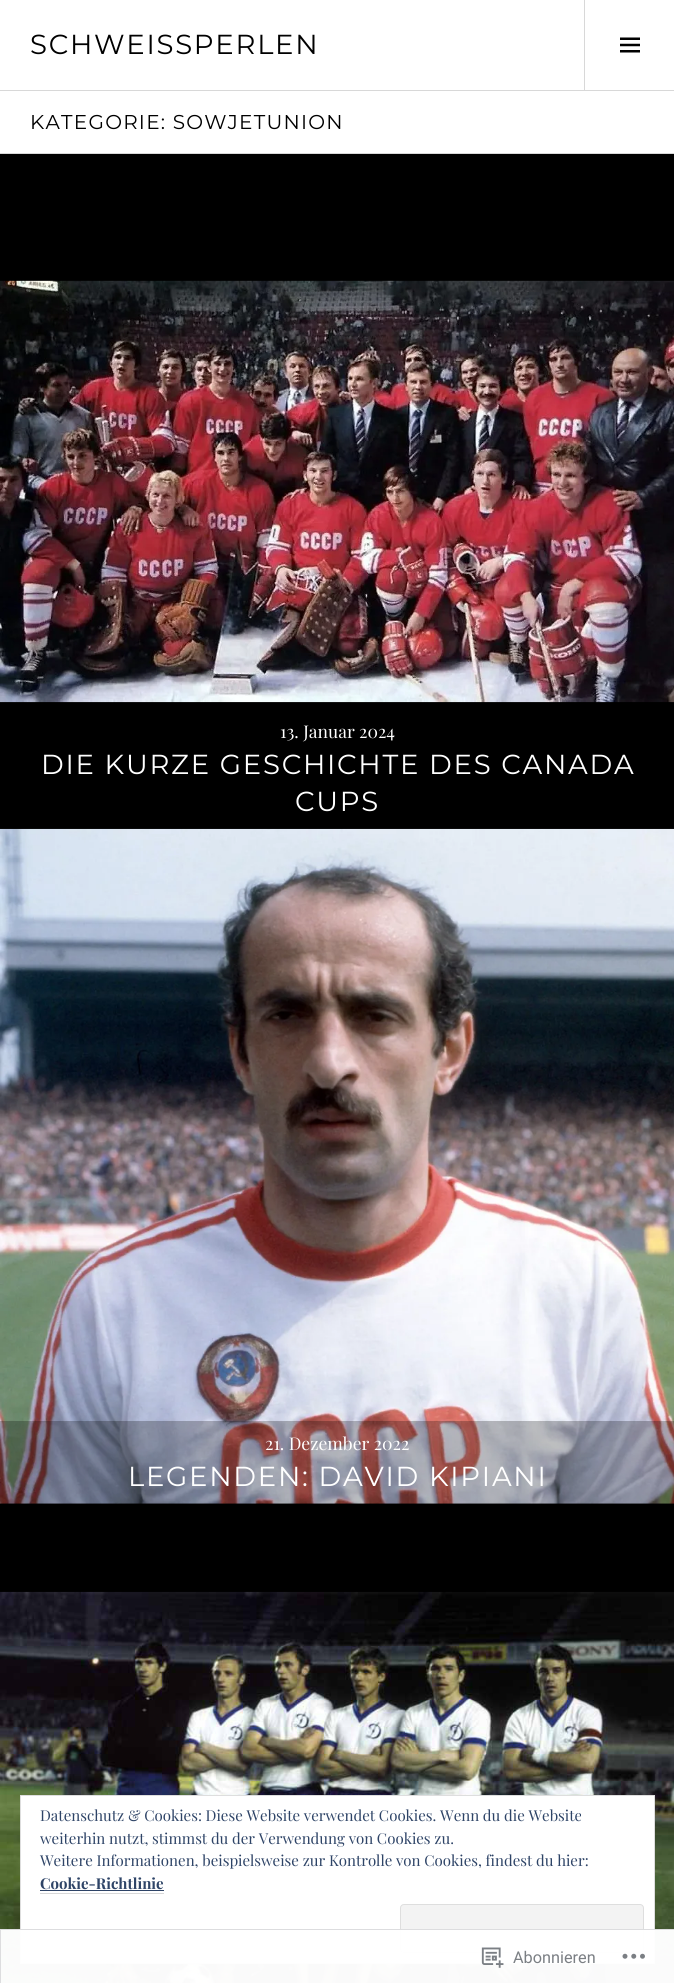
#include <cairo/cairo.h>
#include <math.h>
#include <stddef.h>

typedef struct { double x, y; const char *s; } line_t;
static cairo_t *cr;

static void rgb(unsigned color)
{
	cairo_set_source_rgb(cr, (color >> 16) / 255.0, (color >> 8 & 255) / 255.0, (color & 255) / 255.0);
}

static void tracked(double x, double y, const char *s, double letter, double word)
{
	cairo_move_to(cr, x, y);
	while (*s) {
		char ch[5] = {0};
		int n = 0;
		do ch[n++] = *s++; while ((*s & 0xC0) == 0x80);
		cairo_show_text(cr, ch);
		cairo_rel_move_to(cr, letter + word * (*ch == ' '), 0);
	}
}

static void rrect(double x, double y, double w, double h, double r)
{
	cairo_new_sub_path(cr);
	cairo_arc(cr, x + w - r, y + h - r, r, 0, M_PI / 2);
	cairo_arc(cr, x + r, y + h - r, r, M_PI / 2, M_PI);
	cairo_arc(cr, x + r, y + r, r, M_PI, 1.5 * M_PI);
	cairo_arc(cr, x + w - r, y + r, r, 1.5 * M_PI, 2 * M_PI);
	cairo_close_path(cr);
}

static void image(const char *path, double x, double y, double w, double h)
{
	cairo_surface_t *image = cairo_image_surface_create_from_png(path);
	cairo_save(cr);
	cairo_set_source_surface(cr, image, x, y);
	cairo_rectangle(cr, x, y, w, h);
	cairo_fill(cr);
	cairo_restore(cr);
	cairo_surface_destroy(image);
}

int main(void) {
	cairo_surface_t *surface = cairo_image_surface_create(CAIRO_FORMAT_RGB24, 674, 1983);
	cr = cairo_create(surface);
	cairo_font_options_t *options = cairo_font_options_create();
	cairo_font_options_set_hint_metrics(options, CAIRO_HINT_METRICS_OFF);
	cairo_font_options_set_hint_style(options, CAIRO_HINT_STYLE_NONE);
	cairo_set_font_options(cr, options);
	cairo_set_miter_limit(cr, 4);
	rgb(0xffffff);
	cairo_paint(cr);
	rgb(0xd8d8d8);
	cairo_rectangle(cr, 0, 90, 674, 1);
	cairo_fill(cr);
	cairo_rectangle(cr, 584, 0, 1, 90);
	cairo_fill(cr);
	image("img/1.png", 620, 37, 20, 16);
	cairo_rectangle(cr, 0, 153, 674, 1);
	cairo_fill(cr);
	rgb(0x000000);
	cairo_rectangle(cr, 0, 154, 674, 675);
	cairo_fill(cr);
	image("img/2.png", 0, 280, 674, 423);
	cairo_rectangle(cr, 0, 1503, 674, 89);
	cairo_fill(cr);
	image("img/3.png", 0, 828, 674, 676);
	cairo_set_source_rgba(cr, 0, 0, 0, 0.25);
	cairo_rectangle(cr, 0, 828, 674, 1);
	cairo_fill(cr);
	cairo_rectangle(cr, 0, 1421, 674, 83);
	cairo_fill(cr);
	image("img/4.png", 0, 1591, 674, 392);
	rgb(0xffffff);
	cairo_rectangle(cr, 20.5, 1795.5, 634, 168);
	cairo_fill_preserve(cr);
	rgb(0xdedede);
	cairo_set_line_width(cr, 1);
	cairo_stroke(cr);
	rgb(0xd8d8d8);
	cairo_rectangle(cr, 40, 1893, 124, 1);
	cairo_fill(cr);
	rgb(0x2e4467);
	cairo_rectangle(cr, 40, 1890, 124, 1);
	cairo_fill(cr);
	rgb(0xf3f3f3);
	rrect(400.5, 1904.5, 243, 48, 3.5);
	cairo_fill_preserve(cr);
	rgb(0xdedede);
	cairo_stroke(cr);
	cairo_set_source_rgba(cr, 1, 1, 1, 0.98);
	cairo_rectangle(cr, 0, 1929, 674, 54);
	cairo_fill(cr);
	cairo_rectangle(cr, 0.5, 1929.5, 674, 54);
	cairo_set_source_rgba(cr, 0.863, 0.863, 0.871, 0.98);
	cairo_stroke(cr);
	image("img/5.png", 481, 1947, 23, 21);
	image("img/6.png", 622, 1953, 23, 6);
	cairo_select_font_face(cr, "Montserrat", CAIRO_FONT_SLANT_NORMAL, CAIRO_FONT_WEIGHT_NORMAL);
	cairo_set_font_size(cr, 27.5);
	rgb(0x000000);
	tracked(30, 54, "SCHWEISSPERLEN", 1.75, 0);
	cairo_set_font_size(cr, 20);
	tracked(30, 129, "KATEGORIE: SOWJETUNION", 1.25, 0);
	cairo_select_font_face(cr, "Playfair Display", CAIRO_FONT_SLANT_NORMAL, CAIRO_FONT_WEIGHT_NORMAL);
	cairo_set_font_size(cr, 17.5);
	rgb(0xffffff);
	cairo_move_to(cr, 280, 738);
	cairo_show_text(cr, "13. Januar 2024");
	cairo_select_font_face(cr, "Montserrat", CAIRO_FONT_SLANT_NORMAL, CAIRO_FONT_WEIGHT_NORMAL);
	cairo_set_font_size(cr, 27.5);
	tracked(41, 774, "DIE KURZE GESCHICHTE DES CANADA", 1.75, 0);
	tracked(295, 811, "CUPS", 1.75, 0);
	cairo_select_font_face(cr, "Playfair Display", CAIRO_FONT_SLANT_NORMAL, CAIRO_FONT_WEIGHT_NORMAL);
	cairo_set_font_size(cr, 17.5);
	cairo_move_to(cr, 265, 1450);
	cairo_show_text(cr, "21. Dezember 2022");
	cairo_select_font_face(cr, "Montserrat", CAIRO_FONT_SLANT_NORMAL, CAIRO_FONT_WEIGHT_NORMAL);
	cairo_set_font_size(cr, 27.5);
	tracked(128, 1486, "LEGENDEN: DAVID KIPIANI", 1.75, 0);
	cairo_select_font_face(cr, "Playfair Display", CAIRO_FONT_SLANT_NORMAL, CAIRO_FONT_WEIGHT_NORMAL);
	cairo_set_font_size(cr, 15);
	rgb(0x2e4467);
	{
		static const line_t items[] = {
			{40, 1821, "Datenschutz & Cookies: Diese Website verwendet Cookies. Wenn du die Website"},
			{40, 1844, "weiterhin nutzt, stimmst du der Verwendung von Cookies zu."},
			{40, 1866, "Weitere Informationen, beispielsweise zur Kontrolle von Cookies, findest du hier:"},
		};
		for (size_t i = 0; i < sizeof items / sizeof *items; i++) {
			cairo_move_to(cr, items[i].x, items[i].y);
			cairo_show_text(cr, items[i].s);
		}
	}
	cairo_select_font_face(cr, "Playfair Display", CAIRO_FONT_SLANT_NORMAL, CAIRO_FONT_WEIGHT_BOLD);
	cairo_move_to(cr, 40, 1889);
	cairo_show_text(cr, "Cookie-Richtlinie");
	cairo_select_font_face(cr, "Roboto", CAIRO_FONT_SLANT_NORMAL, CAIRO_FONT_WEIGHT_NORMAL);
	cairo_set_font_size(cr, 16.25);
	rgb(0x7b7f84);
	cairo_move_to(cr, 513, 1963);
	cairo_show_text(cr, "Abonnieren");
	cairo_surface_write_to_png(surface, "page.png");
	cairo_font_options_destroy(options);
	cairo_destroy(cr);
	cairo_surface_destroy(surface);
	return 0;
}
